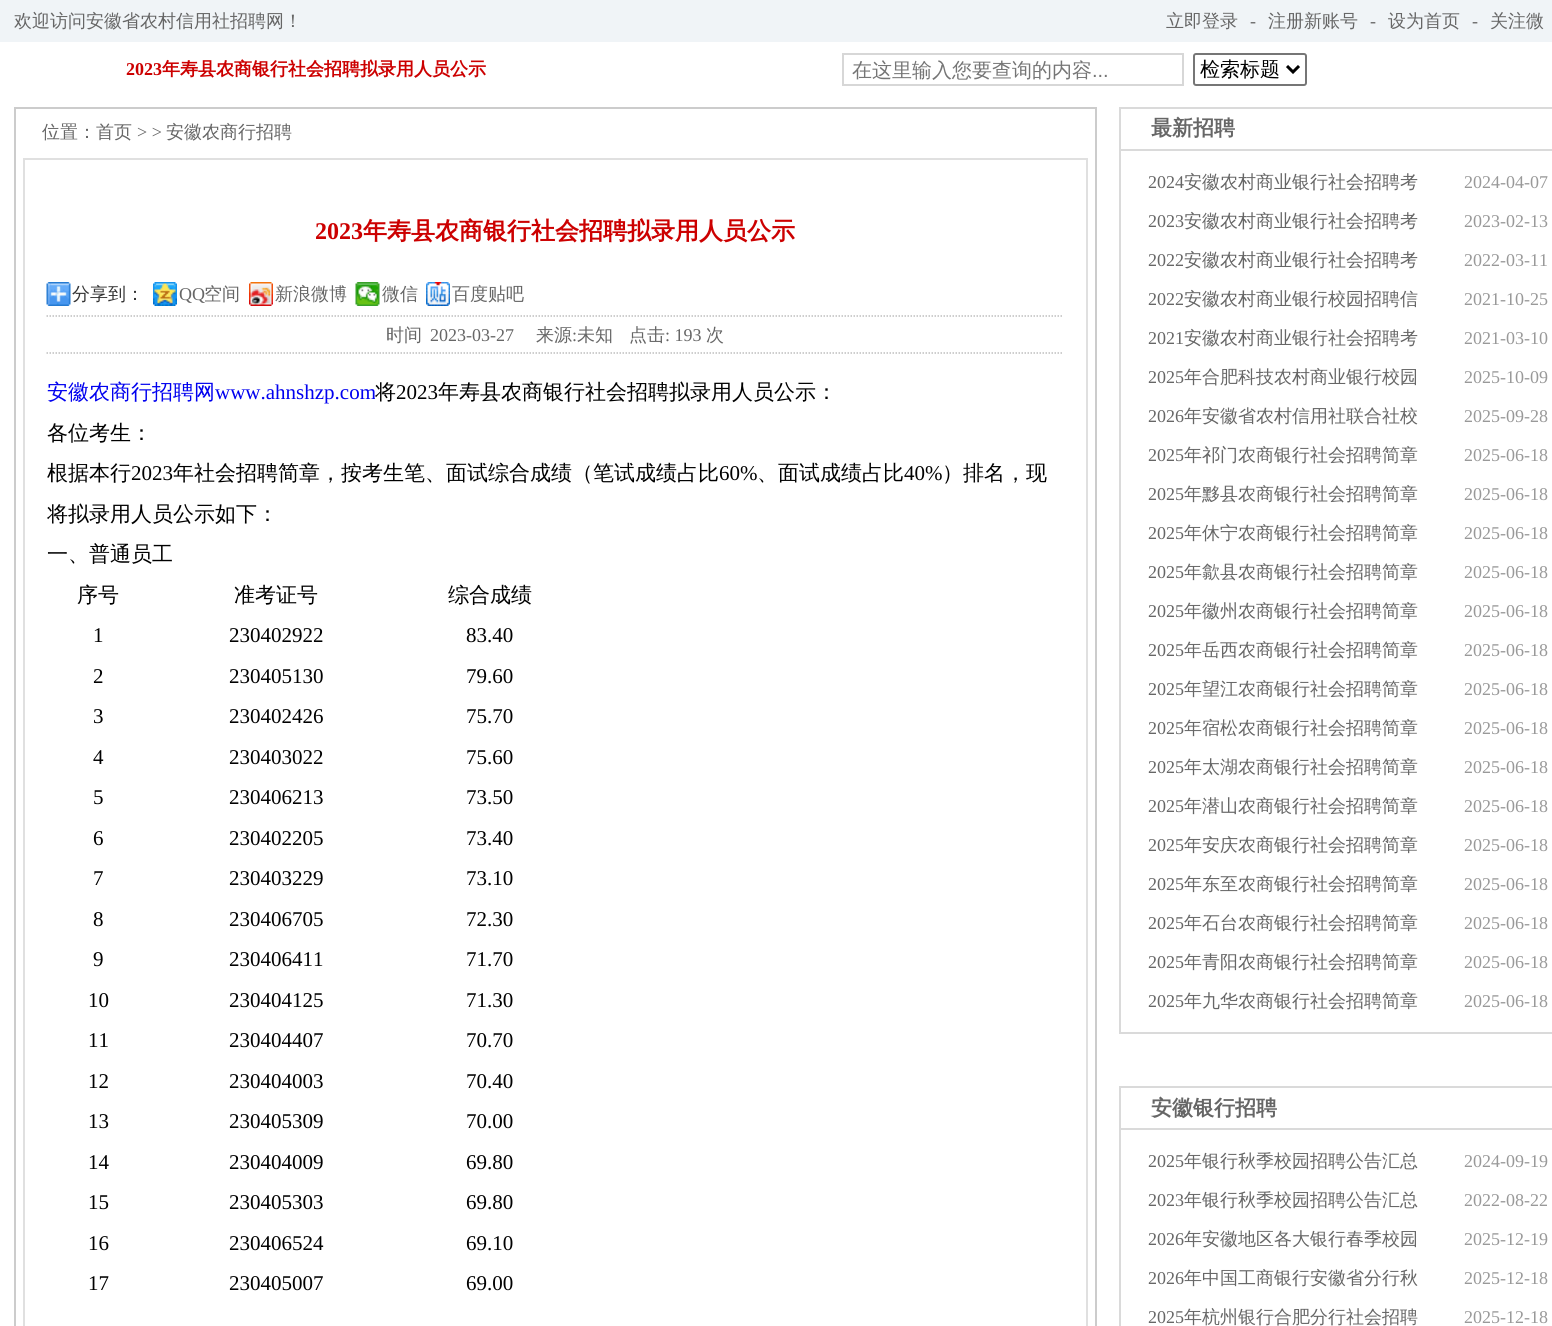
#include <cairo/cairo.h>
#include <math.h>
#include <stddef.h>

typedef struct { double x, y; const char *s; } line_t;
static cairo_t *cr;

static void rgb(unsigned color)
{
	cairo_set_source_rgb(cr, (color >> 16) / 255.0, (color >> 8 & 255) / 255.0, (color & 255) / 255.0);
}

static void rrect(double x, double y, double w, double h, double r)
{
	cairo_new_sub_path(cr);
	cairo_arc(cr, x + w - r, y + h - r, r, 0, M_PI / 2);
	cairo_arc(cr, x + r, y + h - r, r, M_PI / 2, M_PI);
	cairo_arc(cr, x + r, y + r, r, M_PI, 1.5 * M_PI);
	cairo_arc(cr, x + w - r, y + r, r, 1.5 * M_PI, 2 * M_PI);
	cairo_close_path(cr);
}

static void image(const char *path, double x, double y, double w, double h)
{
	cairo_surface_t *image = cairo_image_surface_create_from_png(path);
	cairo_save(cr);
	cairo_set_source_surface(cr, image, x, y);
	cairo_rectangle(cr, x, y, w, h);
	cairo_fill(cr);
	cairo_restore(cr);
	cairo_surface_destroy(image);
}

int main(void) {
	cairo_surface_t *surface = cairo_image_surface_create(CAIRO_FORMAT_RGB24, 1552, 1326);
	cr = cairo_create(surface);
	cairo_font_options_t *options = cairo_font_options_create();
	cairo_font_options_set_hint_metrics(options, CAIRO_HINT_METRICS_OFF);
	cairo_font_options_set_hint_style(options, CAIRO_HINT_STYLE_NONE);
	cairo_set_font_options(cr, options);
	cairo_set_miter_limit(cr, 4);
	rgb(0xf0f4f7);
	cairo_paint(cr);
	rgb(0xffffff);
	cairo_rectangle(cr, 0, 42, 1552, 1284);
	cairo_fill(cr);
	cairo_rectangle(cr, 843, 54, 340, 31);
	rgb(0xd7d7d7);
	cairo_stroke(cr);
	rrect(1194, 54, 112, 31, 2);
	rgb(0x767676);
	cairo_stroke(cr);
	cairo_new_path(cr);
	cairo_move_to(cr, 1287, 66);
	cairo_line_to(cr, 1293, 72);
	cairo_line_to(cr, 1299, 66);
	rgb(0x000000);
	cairo_set_line_width(cr, 3);
	cairo_stroke(cr);
	cairo_rectangle(cr, 15, 108, 1081, 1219);
	rgb(0xcccccc);
	cairo_set_line_width(cr, 2);
	cairo_stroke(cr);
	cairo_rectangle(cr, 24, 159, 1063, 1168);
	rgb(0xe0e0e0);
	cairo_stroke(cr);
	image("img/1.png", 46, 282, 25, 24);
	image("img/2.png", 153, 282, 24, 24);
	image("img/3.png", 249, 282, 24, 24);
	image("img/4.png", 355, 282, 25, 24);
	image("img/5.png", 426, 282, 24, 24);
	cairo_new_path(cr);
	cairo_move_to(cr, 46.5, 316);
	cairo_line_to(cr, 1063.5, 316);
	rgb(0xbebebe);
	cairo_set_line_width(cr, 1.5);
	cairo_set_dash(cr, (double[]){1.5, 1.5}, 2, 0);
	cairo_stroke(cr);
	cairo_new_path(cr);
	cairo_move_to(cr, 46.5, 353);
	cairo_line_to(cr, 1063.5, 353);
	cairo_stroke(cr);
	cairo_rectangle(cr, 1120, 108, 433, 925);
	rgb(0xdadada);
	cairo_set_line_width(cr, 2);
	cairo_set_dash(cr, NULL, 0, 0);
	cairo_stroke(cr);
	cairo_rectangle(cr, 1121, 149, 431, 2);
	cairo_fill(cr);
	cairo_rectangle(cr, 1120, 1087, 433, 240);
	cairo_stroke(cr);
	cairo_rectangle(cr, 1121, 1128, 431, 2);
	cairo_fill(cr);
	cairo_select_font_face(cr, "WenQuanYi Zen Hei Medium", CAIRO_FONT_SLANT_NORMAL, CAIRO_FONT_WEIGHT_NORMAL);
	cairo_set_font_size(cr, 18);
	rgb(0x666666);
	cairo_move_to(cr, 14, 27);
	cairo_show_text(cr, "欢迎访问安徽省农村信用社招聘网！");
	cairo_move_to(cr, 1166, 27);
	cairo_show_text(cr, "立即登录");
	cairo_select_font_face(cr, "Liberation Serif", CAIRO_FONT_SLANT_NORMAL, CAIRO_FONT_WEIGHT_NORMAL);
	cairo_move_to(cr, 1250, 27);
	cairo_show_text(cr, "-");
	cairo_select_font_face(cr, "WenQuanYi Zen Hei Medium", CAIRO_FONT_SLANT_NORMAL, CAIRO_FONT_WEIGHT_NORMAL);
	cairo_move_to(cr, 1268, 27);
	cairo_show_text(cr, "注册新账号");
	cairo_select_font_face(cr, "Liberation Serif", CAIRO_FONT_SLANT_NORMAL, CAIRO_FONT_WEIGHT_NORMAL);
	cairo_move_to(cr, 1370, 27);
	cairo_show_text(cr, "-");
	cairo_select_font_face(cr, "WenQuanYi Zen Hei Medium", CAIRO_FONT_SLANT_NORMAL, CAIRO_FONT_WEIGHT_NORMAL);
	cairo_move_to(cr, 1388, 27);
	cairo_show_text(cr, "设为首页");
	cairo_select_font_face(cr, "Liberation Serif", CAIRO_FONT_SLANT_NORMAL, CAIRO_FONT_WEIGHT_NORMAL);
	cairo_move_to(cr, 1472, 27);
	cairo_show_text(cr, "-");
	cairo_select_font_face(cr, "WenQuanYi Zen Hei Medium", CAIRO_FONT_SLANT_NORMAL, CAIRO_FONT_WEIGHT_NORMAL);
	cairo_move_to(cr, 1490, 27);
	cairo_show_text(cr, "关注微");
	cairo_select_font_face(cr, "Liberation Serif", CAIRO_FONT_SLANT_NORMAL, CAIRO_FONT_WEIGHT_BOLD);
	rgb(0xcc0000);
	cairo_move_to(cr, 126, 75);
	cairo_show_text(cr, "2023");
	cairo_select_font_face(cr, "WenQuanYi Zen Hei", CAIRO_FONT_SLANT_NORMAL, CAIRO_FONT_WEIGHT_BOLD);
	cairo_move_to(cr, 162, 75);
	cairo_show_text(cr, "年寿县农商银行社会招聘拟录用人员公示");
	cairo_select_font_face(cr, "WenQuanYi Zen Hei Medium", CAIRO_FONT_SLANT_NORMAL, CAIRO_FONT_WEIGHT_NORMAL);
	cairo_set_font_size(cr, 20);
	rgb(0x757575);
	cairo_move_to(cr, 852, 77);
	cairo_show_text(cr, "在这里输入您要查询的内容");
	cairo_select_font_face(cr, "Liberation Sans", CAIRO_FONT_SLANT_NORMAL, CAIRO_FONT_WEIGHT_NORMAL);
	cairo_move_to(cr, 1092, 77);
	cairo_show_text(cr, "...");
	cairo_select_font_face(cr, "WenQuanYi Zen Hei Medium", CAIRO_FONT_SLANT_NORMAL, CAIRO_FONT_WEIGHT_NORMAL);
	rgb(0x000000);
	cairo_move_to(cr, 1200, 76);
	cairo_show_text(cr, "检索标题");
	cairo_set_font_size(cr, 18);
	rgb(0x666666);
	cairo_move_to(cr, 42, 138);
	cairo_show_text(cr, "位置：首页");
	cairo_select_font_face(cr, "Liberation Serif", CAIRO_FONT_SLANT_NORMAL, CAIRO_FONT_WEIGHT_NORMAL);
	cairo_move_to(cr, 137, 138);
	cairo_show_text(cr, "> >");
	cairo_select_font_face(cr, "WenQuanYi Zen Hei Medium", CAIRO_FONT_SLANT_NORMAL, CAIRO_FONT_WEIGHT_NORMAL);
	cairo_move_to(cr, 166, 138);
	cairo_show_text(cr, "安徽农商行招聘");
	cairo_select_font_face(cr, "Liberation Serif", CAIRO_FONT_SLANT_NORMAL, CAIRO_FONT_WEIGHT_BOLD);
	cairo_set_font_size(cr, 24);
	rgb(0xcc0000);
	cairo_move_to(cr, 315, 239);
	cairo_show_text(cr, "2023");
	cairo_select_font_face(cr, "WenQuanYi Zen Hei", CAIRO_FONT_SLANT_NORMAL, CAIRO_FONT_WEIGHT_BOLD);
	cairo_move_to(cr, 363, 239);
	cairo_show_text(cr, "年寿县农商银行社会招聘拟录用人员公示");
	cairo_select_font_face(cr, "WenQuanYi Zen Hei Medium", CAIRO_FONT_SLANT_NORMAL, CAIRO_FONT_WEIGHT_NORMAL);
	cairo_set_font_size(cr, 18);
	rgb(0x333333);
	cairo_move_to(cr, 72, 300);
	cairo_show_text(cr, "分享到：");
	cairo_select_font_face(cr, "Liberation Serif", CAIRO_FONT_SLANT_NORMAL, CAIRO_FONT_WEIGHT_NORMAL);
	rgb(0x666666);
	cairo_move_to(cr, 179, 300);
	cairo_show_text(cr, "QQ");
	cairo_select_font_face(cr, "WenQuanYi Zen Hei Medium", CAIRO_FONT_SLANT_NORMAL, CAIRO_FONT_WEIGHT_NORMAL);
	{
		static const line_t items[] = {
			{204, 300, "空间"},
			{275, 300, "新浪微博"},
			{382, 300, "微信"},
			{452, 300, "百度贴吧"},
			{386, 341, "时间"},
		};
		for (size_t i = 0; i < sizeof items / sizeof *items; i++) {
			cairo_move_to(cr, items[i].x, items[i].y);
			cairo_show_text(cr, items[i].s);
		}
	}
	cairo_select_font_face(cr, "Liberation Serif", CAIRO_FONT_SLANT_NORMAL, CAIRO_FONT_WEIGHT_NORMAL);
	cairo_move_to(cr, 430, 341);
	cairo_show_text(cr, "2023-03-27");
	cairo_select_font_face(cr, "WenQuanYi Zen Hei Medium", CAIRO_FONT_SLANT_NORMAL, CAIRO_FONT_WEIGHT_NORMAL);
	cairo_move_to(cr, 536, 341);
	cairo_show_text(cr, "来源");
	cairo_select_font_face(cr, "Liberation Serif", CAIRO_FONT_SLANT_NORMAL, CAIRO_FONT_WEIGHT_NORMAL);
	cairo_move_to(cr, 572, 341);
	cairo_show_text(cr, ":");
	cairo_select_font_face(cr, "WenQuanYi Zen Hei Medium", CAIRO_FONT_SLANT_NORMAL, CAIRO_FONT_WEIGHT_NORMAL);
	cairo_move_to(cr, 577, 341);
	cairo_show_text(cr, "未知");
	cairo_move_to(cr, 629, 341);
	cairo_show_text(cr, "点击");
	cairo_select_font_face(cr, "Liberation Serif", CAIRO_FONT_SLANT_NORMAL, CAIRO_FONT_WEIGHT_NORMAL);
	cairo_move_to(cr, 665, 341);
	cairo_show_text(cr, ": 193");
	cairo_select_font_face(cr, "WenQuanYi Zen Hei Medium", CAIRO_FONT_SLANT_NORMAL, CAIRO_FONT_WEIGHT_NORMAL);
	cairo_move_to(cr, 706, 341);
	cairo_show_text(cr, "次");
	cairo_set_font_size(cr, 21);
	rgb(0x0000ef);
	cairo_move_to(cr, 47, 399);
	cairo_show_text(cr, "安徽农商行招聘网");
	cairo_select_font_face(cr, "Liberation Serif", CAIRO_FONT_SLANT_NORMAL, CAIRO_FONT_WEIGHT_NORMAL);
	cairo_move_to(cr, 215, 399);
	cairo_show_text(cr, "www.ahnshzp.com");
	rgb(0xffffff);
	cairo_rectangle(cr, 375, 398, 1, 1);
	cairo_fill(cr);
	cairo_select_font_face(cr, "WenQuanYi Zen Hei Medium", CAIRO_FONT_SLANT_NORMAL, CAIRO_FONT_WEIGHT_NORMAL);
	rgb(0x000000);
	cairo_move_to(cr, 375, 399);
	cairo_show_text(cr, "将");
	cairo_select_font_face(cr, "Liberation Serif", CAIRO_FONT_SLANT_NORMAL, CAIRO_FONT_WEIGHT_NORMAL);
	cairo_move_to(cr, 396, 399);
	cairo_show_text(cr, "2023");
	cairo_select_font_face(cr, "WenQuanYi Zen Hei Medium", CAIRO_FONT_SLANT_NORMAL, CAIRO_FONT_WEIGHT_NORMAL);
	{
		static const line_t items[] = {
			{438, 399, "年寿县农商银行社会招聘拟录用人员公示："},
			{47, 440, "各位考生："},
			{47, 480, "根据本行"},
		};
		for (size_t i = 0; i < sizeof items / sizeof *items; i++) {
			cairo_move_to(cr, items[i].x, items[i].y);
			cairo_show_text(cr, items[i].s);
		}
	}
	cairo_select_font_face(cr, "Liberation Serif", CAIRO_FONT_SLANT_NORMAL, CAIRO_FONT_WEIGHT_NORMAL);
	cairo_move_to(cr, 131, 480);
	cairo_show_text(cr, "2023");
	cairo_select_font_face(cr, "WenQuanYi Zen Hei Medium", CAIRO_FONT_SLANT_NORMAL, CAIRO_FONT_WEIGHT_NORMAL);
	cairo_move_to(cr, 173, 480);
	cairo_show_text(cr, "年社会招聘简章，按考生笔、面试综合成绩（笔试成绩占比");
	cairo_select_font_face(cr, "Liberation Serif", CAIRO_FONT_SLANT_NORMAL, CAIRO_FONT_WEIGHT_NORMAL);
	cairo_move_to(cr, 719, 480);
	cairo_show_text(cr, "60%");
	cairo_select_font_face(cr, "WenQuanYi Zen Hei Medium", CAIRO_FONT_SLANT_NORMAL, CAIRO_FONT_WEIGHT_NORMAL);
	cairo_move_to(cr, 757, 480);
	cairo_show_text(cr, "、面试成绩占比");
	cairo_select_font_face(cr, "Liberation Serif", CAIRO_FONT_SLANT_NORMAL, CAIRO_FONT_WEIGHT_NORMAL);
	cairo_move_to(cr, 904, 480);
	cairo_show_text(cr, "40%");
	cairo_select_font_face(cr, "WenQuanYi Zen Hei Medium", CAIRO_FONT_SLANT_NORMAL, CAIRO_FONT_WEIGHT_NORMAL);
	{
		static const line_t items[] = {
			{942, 480, "）排名，现"},
			{47, 521, "将拟录用人员公示如下："},
			{47, 561, "一、普通员工"},
			{77, 602, "序号"},
			{234, 602, "准考证号"},
			{448, 602, "综合成绩"},
		};
		for (size_t i = 0; i < sizeof items / sizeof *items; i++) {
			cairo_move_to(cr, items[i].x, items[i].y);
			cairo_show_text(cr, items[i].s);
		}
	}
	cairo_select_font_face(cr, "Liberation Serif", CAIRO_FONT_SLANT_NORMAL, CAIRO_FONT_WEIGHT_NORMAL);
	{
		static const line_t items[] = {
			{93, 642, "1"},
			{229, 642, "230402922"},
			{466, 642, "83.40"},
			{93, 683, "2"},
			{229, 683, "230405130"},
			{466, 683, "79.60"},
			{93, 723, "3"},
			{229, 723, "230402426"},
			{466, 723, "75.70"},
			{93, 764, "4"},
			{229, 764, "230403022"},
			{466, 764, "75.60"},
			{93, 804, "5"},
			{229, 804, "230406213"},
			{466, 804, "73.50"},
			{93, 845, "6"},
			{229, 845, "230402205"},
			{466, 845, "73.40"},
			{93, 885, "7"},
			{229, 885, "230403229"},
			{466, 885, "73.10"},
			{93, 926, "8"},
			{229, 926, "230406705"},
			{466, 926, "72.30"},
			{93, 966, "9"},
			{229, 966, "230406411"},
			{466, 966, "71.70"},
			{88, 1007, "10"},
			{229, 1007, "230404125"},
			{466, 1007, "71.30"},
			{88, 1047, "11"},
			{229, 1047, "230404407"},
			{466, 1047, "70.70"},
			{88, 1088, "12"},
			{229, 1088, "230404003"},
			{466, 1088, "70.40"},
			{88, 1128, "13"},
			{229, 1128, "230405309"},
			{466, 1128, "70.00"},
			{88, 1169, "14"},
			{229, 1169, "230404009"},
			{466, 1169, "69.80"},
			{88, 1209, "15"},
			{229, 1209, "230405303"},
			{466, 1209, "69.80"},
			{88, 1250, "16"},
			{229, 1250, "230406524"},
			{466, 1250, "69.10"},
			{88, 1290, "17"},
			{229, 1290, "230405007"},
			{466, 1290, "69.00"},
		};
		for (size_t i = 0; i < sizeof items / sizeof *items; i++) {
			cairo_move_to(cr, items[i].x, items[i].y);
			cairo_show_text(cr, items[i].s);
		}
	}
	cairo_select_font_face(cr, "WenQuanYi Zen Hei", CAIRO_FONT_SLANT_NORMAL, CAIRO_FONT_WEIGHT_BOLD);
	rgb(0x666666);
	cairo_move_to(cr, 1151, 135);
	cairo_show_text(cr, "最新招聘");
	cairo_select_font_face(cr, "Liberation Serif", CAIRO_FONT_SLANT_NORMAL, CAIRO_FONT_WEIGHT_NORMAL);
	cairo_set_font_size(cr, 18);
	cairo_move_to(cr, 1148, 188);
	cairo_show_text(cr, "2024");
	cairo_select_font_face(cr, "WenQuanYi Zen Hei Medium", CAIRO_FONT_SLANT_NORMAL, CAIRO_FONT_WEIGHT_NORMAL);
	cairo_move_to(cr, 1184, 188);
	cairo_show_text(cr, "安徽农村商业银行社会招聘考");
	cairo_select_font_face(cr, "Liberation Serif", CAIRO_FONT_SLANT_NORMAL, CAIRO_FONT_WEIGHT_NORMAL);
	rgb(0x999999);
	cairo_move_to(cr, 1464, 188);
	cairo_show_text(cr, "2024-04-07");
	rgb(0x666666);
	cairo_move_to(cr, 1148, 227);
	cairo_show_text(cr, "2023");
	cairo_select_font_face(cr, "WenQuanYi Zen Hei Medium", CAIRO_FONT_SLANT_NORMAL, CAIRO_FONT_WEIGHT_NORMAL);
	cairo_move_to(cr, 1184, 227);
	cairo_show_text(cr, "安徽农村商业银行社会招聘考");
	cairo_select_font_face(cr, "Liberation Serif", CAIRO_FONT_SLANT_NORMAL, CAIRO_FONT_WEIGHT_NORMAL);
	rgb(0x999999);
	cairo_move_to(cr, 1464, 227);
	cairo_show_text(cr, "2023-02-13");
	rgb(0x666666);
	cairo_move_to(cr, 1148, 266);
	cairo_show_text(cr, "2022");
	cairo_select_font_face(cr, "WenQuanYi Zen Hei Medium", CAIRO_FONT_SLANT_NORMAL, CAIRO_FONT_WEIGHT_NORMAL);
	cairo_move_to(cr, 1184, 266);
	cairo_show_text(cr, "安徽农村商业银行社会招聘考");
	cairo_select_font_face(cr, "Liberation Serif", CAIRO_FONT_SLANT_NORMAL, CAIRO_FONT_WEIGHT_NORMAL);
	rgb(0x999999);
	cairo_move_to(cr, 1464, 266);
	cairo_show_text(cr, "2022-03-11");
	rgb(0x666666);
	cairo_move_to(cr, 1148, 305);
	cairo_show_text(cr, "2022");
	cairo_select_font_face(cr, "WenQuanYi Zen Hei Medium", CAIRO_FONT_SLANT_NORMAL, CAIRO_FONT_WEIGHT_NORMAL);
	cairo_move_to(cr, 1184, 305);
	cairo_show_text(cr, "安徽农村商业银行校园招聘信");
	cairo_select_font_face(cr, "Liberation Serif", CAIRO_FONT_SLANT_NORMAL, CAIRO_FONT_WEIGHT_NORMAL);
	rgb(0x999999);
	cairo_move_to(cr, 1464, 305);
	cairo_show_text(cr, "2021-10-25");
	rgb(0x666666);
	cairo_move_to(cr, 1148, 344);
	cairo_show_text(cr, "2021");
	cairo_select_font_face(cr, "WenQuanYi Zen Hei Medium", CAIRO_FONT_SLANT_NORMAL, CAIRO_FONT_WEIGHT_NORMAL);
	cairo_move_to(cr, 1184, 344);
	cairo_show_text(cr, "安徽农村商业银行社会招聘考");
	cairo_select_font_face(cr, "Liberation Serif", CAIRO_FONT_SLANT_NORMAL, CAIRO_FONT_WEIGHT_NORMAL);
	rgb(0x999999);
	cairo_move_to(cr, 1464, 344);
	cairo_show_text(cr, "2021-03-10");
	rgb(0x666666);
	cairo_move_to(cr, 1148, 383);
	cairo_show_text(cr, "2025");
	cairo_select_font_face(cr, "WenQuanYi Zen Hei Medium", CAIRO_FONT_SLANT_NORMAL, CAIRO_FONT_WEIGHT_NORMAL);
	cairo_move_to(cr, 1184, 383);
	cairo_show_text(cr, "年合肥科技农村商业银行校园");
	cairo_select_font_face(cr, "Liberation Serif", CAIRO_FONT_SLANT_NORMAL, CAIRO_FONT_WEIGHT_NORMAL);
	rgb(0x999999);
	cairo_move_to(cr, 1464, 383);
	cairo_show_text(cr, "2025-10-09");
	rgb(0x666666);
	cairo_move_to(cr, 1148, 422);
	cairo_show_text(cr, "2026");
	cairo_select_font_face(cr, "WenQuanYi Zen Hei Medium", CAIRO_FONT_SLANT_NORMAL, CAIRO_FONT_WEIGHT_NORMAL);
	cairo_move_to(cr, 1184, 422);
	cairo_show_text(cr, "年安徽省农村信用社联合社校");
	cairo_select_font_face(cr, "Liberation Serif", CAIRO_FONT_SLANT_NORMAL, CAIRO_FONT_WEIGHT_NORMAL);
	rgb(0x999999);
	cairo_move_to(cr, 1464, 422);
	cairo_show_text(cr, "2025-09-28");
	rgb(0x666666);
	cairo_move_to(cr, 1148, 461);
	cairo_show_text(cr, "2025");
	cairo_select_font_face(cr, "WenQuanYi Zen Hei Medium", CAIRO_FONT_SLANT_NORMAL, CAIRO_FONT_WEIGHT_NORMAL);
	cairo_move_to(cr, 1184, 461);
	cairo_show_text(cr, "年祁门农商银行社会招聘简章");
	cairo_select_font_face(cr, "Liberation Serif", CAIRO_FONT_SLANT_NORMAL, CAIRO_FONT_WEIGHT_NORMAL);
	rgb(0x999999);
	cairo_move_to(cr, 1464, 461);
	cairo_show_text(cr, "2025-06-18");
	rgb(0x666666);
	cairo_move_to(cr, 1148, 500);
	cairo_show_text(cr, "2025");
	cairo_select_font_face(cr, "WenQuanYi Zen Hei Medium", CAIRO_FONT_SLANT_NORMAL, CAIRO_FONT_WEIGHT_NORMAL);
	cairo_move_to(cr, 1184, 500);
	cairo_show_text(cr, "年黟县农商银行社会招聘简章");
	cairo_select_font_face(cr, "Liberation Serif", CAIRO_FONT_SLANT_NORMAL, CAIRO_FONT_WEIGHT_NORMAL);
	rgb(0x999999);
	cairo_move_to(cr, 1464, 500);
	cairo_show_text(cr, "2025-06-18");
	rgb(0x666666);
	cairo_move_to(cr, 1148, 539);
	cairo_show_text(cr, "2025");
	cairo_select_font_face(cr, "WenQuanYi Zen Hei Medium", CAIRO_FONT_SLANT_NORMAL, CAIRO_FONT_WEIGHT_NORMAL);
	cairo_move_to(cr, 1184, 539);
	cairo_show_text(cr, "年休宁农商银行社会招聘简章");
	cairo_select_font_face(cr, "Liberation Serif", CAIRO_FONT_SLANT_NORMAL, CAIRO_FONT_WEIGHT_NORMAL);
	rgb(0x999999);
	cairo_move_to(cr, 1464, 539);
	cairo_show_text(cr, "2025-06-18");
	rgb(0x666666);
	cairo_move_to(cr, 1148, 578);
	cairo_show_text(cr, "2025");
	cairo_select_font_face(cr, "WenQuanYi Zen Hei Medium", CAIRO_FONT_SLANT_NORMAL, CAIRO_FONT_WEIGHT_NORMAL);
	cairo_move_to(cr, 1184, 578);
	cairo_show_text(cr, "年歙县农商银行社会招聘简章");
	cairo_select_font_face(cr, "Liberation Serif", CAIRO_FONT_SLANT_NORMAL, CAIRO_FONT_WEIGHT_NORMAL);
	rgb(0x999999);
	cairo_move_to(cr, 1464, 578);
	cairo_show_text(cr, "2025-06-18");
	rgb(0x666666);
	cairo_move_to(cr, 1148, 617);
	cairo_show_text(cr, "2025");
	cairo_select_font_face(cr, "WenQuanYi Zen Hei Medium", CAIRO_FONT_SLANT_NORMAL, CAIRO_FONT_WEIGHT_NORMAL);
	cairo_move_to(cr, 1184, 617);
	cairo_show_text(cr, "年徽州农商银行社会招聘简章");
	cairo_select_font_face(cr, "Liberation Serif", CAIRO_FONT_SLANT_NORMAL, CAIRO_FONT_WEIGHT_NORMAL);
	rgb(0x999999);
	cairo_move_to(cr, 1464, 617);
	cairo_show_text(cr, "2025-06-18");
	rgb(0x666666);
	cairo_move_to(cr, 1148, 656);
	cairo_show_text(cr, "2025");
	cairo_select_font_face(cr, "WenQuanYi Zen Hei Medium", CAIRO_FONT_SLANT_NORMAL, CAIRO_FONT_WEIGHT_NORMAL);
	cairo_move_to(cr, 1184, 656);
	cairo_show_text(cr, "年岳西农商银行社会招聘简章");
	cairo_select_font_face(cr, "Liberation Serif", CAIRO_FONT_SLANT_NORMAL, CAIRO_FONT_WEIGHT_NORMAL);
	rgb(0x999999);
	cairo_move_to(cr, 1464, 656);
	cairo_show_text(cr, "2025-06-18");
	rgb(0x666666);
	cairo_move_to(cr, 1148, 695);
	cairo_show_text(cr, "2025");
	cairo_select_font_face(cr, "WenQuanYi Zen Hei Medium", CAIRO_FONT_SLANT_NORMAL, CAIRO_FONT_WEIGHT_NORMAL);
	cairo_move_to(cr, 1184, 695);
	cairo_show_text(cr, "年望江农商银行社会招聘简章");
	cairo_select_font_face(cr, "Liberation Serif", CAIRO_FONT_SLANT_NORMAL, CAIRO_FONT_WEIGHT_NORMAL);
	rgb(0x999999);
	cairo_move_to(cr, 1464, 695);
	cairo_show_text(cr, "2025-06-18");
	rgb(0x666666);
	cairo_move_to(cr, 1148, 734);
	cairo_show_text(cr, "2025");
	cairo_select_font_face(cr, "WenQuanYi Zen Hei Medium", CAIRO_FONT_SLANT_NORMAL, CAIRO_FONT_WEIGHT_NORMAL);
	cairo_move_to(cr, 1184, 734);
	cairo_show_text(cr, "年宿松农商银行社会招聘简章");
	cairo_select_font_face(cr, "Liberation Serif", CAIRO_FONT_SLANT_NORMAL, CAIRO_FONT_WEIGHT_NORMAL);
	rgb(0x999999);
	cairo_move_to(cr, 1464, 734);
	cairo_show_text(cr, "2025-06-18");
	rgb(0x666666);
	cairo_move_to(cr, 1148, 773);
	cairo_show_text(cr, "2025");
	cairo_select_font_face(cr, "WenQuanYi Zen Hei Medium", CAIRO_FONT_SLANT_NORMAL, CAIRO_FONT_WEIGHT_NORMAL);
	cairo_move_to(cr, 1184, 773);
	cairo_show_text(cr, "年太湖农商银行社会招聘简章");
	cairo_select_font_face(cr, "Liberation Serif", CAIRO_FONT_SLANT_NORMAL, CAIRO_FONT_WEIGHT_NORMAL);
	rgb(0x999999);
	cairo_move_to(cr, 1464, 773);
	cairo_show_text(cr, "2025-06-18");
	rgb(0x666666);
	cairo_move_to(cr, 1148, 812);
	cairo_show_text(cr, "2025");
	cairo_select_font_face(cr, "WenQuanYi Zen Hei Medium", CAIRO_FONT_SLANT_NORMAL, CAIRO_FONT_WEIGHT_NORMAL);
	cairo_move_to(cr, 1184, 812);
	cairo_show_text(cr, "年潜山农商银行社会招聘简章");
	cairo_select_font_face(cr, "Liberation Serif", CAIRO_FONT_SLANT_NORMAL, CAIRO_FONT_WEIGHT_NORMAL);
	rgb(0x999999);
	cairo_move_to(cr, 1464, 812);
	cairo_show_text(cr, "2025-06-18");
	rgb(0x666666);
	cairo_move_to(cr, 1148, 851);
	cairo_show_text(cr, "2025");
	cairo_select_font_face(cr, "WenQuanYi Zen Hei Medium", CAIRO_FONT_SLANT_NORMAL, CAIRO_FONT_WEIGHT_NORMAL);
	cairo_move_to(cr, 1184, 851);
	cairo_show_text(cr, "年安庆农商银行社会招聘简章");
	cairo_select_font_face(cr, "Liberation Serif", CAIRO_FONT_SLANT_NORMAL, CAIRO_FONT_WEIGHT_NORMAL);
	rgb(0x999999);
	cairo_move_to(cr, 1464, 851);
	cairo_show_text(cr, "2025-06-18");
	rgb(0x666666);
	cairo_move_to(cr, 1148, 890);
	cairo_show_text(cr, "2025");
	cairo_select_font_face(cr, "WenQuanYi Zen Hei Medium", CAIRO_FONT_SLANT_NORMAL, CAIRO_FONT_WEIGHT_NORMAL);
	cairo_move_to(cr, 1184, 890);
	cairo_show_text(cr, "年东至农商银行社会招聘简章");
	cairo_select_font_face(cr, "Liberation Serif", CAIRO_FONT_SLANT_NORMAL, CAIRO_FONT_WEIGHT_NORMAL);
	rgb(0x999999);
	cairo_move_to(cr, 1464, 890);
	cairo_show_text(cr, "2025-06-18");
	rgb(0x666666);
	cairo_move_to(cr, 1148, 929);
	cairo_show_text(cr, "2025");
	cairo_select_font_face(cr, "WenQuanYi Zen Hei Medium", CAIRO_FONT_SLANT_NORMAL, CAIRO_FONT_WEIGHT_NORMAL);
	cairo_move_to(cr, 1184, 929);
	cairo_show_text(cr, "年石台农商银行社会招聘简章");
	cairo_select_font_face(cr, "Liberation Serif", CAIRO_FONT_SLANT_NORMAL, CAIRO_FONT_WEIGHT_NORMAL);
	rgb(0x999999);
	cairo_move_to(cr, 1464, 929);
	cairo_show_text(cr, "2025-06-18");
	rgb(0x666666);
	cairo_move_to(cr, 1148, 968);
	cairo_show_text(cr, "2025");
	cairo_select_font_face(cr, "WenQuanYi Zen Hei Medium", CAIRO_FONT_SLANT_NORMAL, CAIRO_FONT_WEIGHT_NORMAL);
	cairo_move_to(cr, 1184, 968);
	cairo_show_text(cr, "年青阳农商银行社会招聘简章");
	cairo_select_font_face(cr, "Liberation Serif", CAIRO_FONT_SLANT_NORMAL, CAIRO_FONT_WEIGHT_NORMAL);
	rgb(0x999999);
	cairo_move_to(cr, 1464, 968);
	cairo_show_text(cr, "2025-06-18");
	rgb(0x666666);
	cairo_move_to(cr, 1148, 1007);
	cairo_show_text(cr, "2025");
	cairo_select_font_face(cr, "WenQuanYi Zen Hei Medium", CAIRO_FONT_SLANT_NORMAL, CAIRO_FONT_WEIGHT_NORMAL);
	cairo_move_to(cr, 1184, 1007);
	cairo_show_text(cr, "年九华农商银行社会招聘简章");
	cairo_select_font_face(cr, "Liberation Serif", CAIRO_FONT_SLANT_NORMAL, CAIRO_FONT_WEIGHT_NORMAL);
	rgb(0x999999);
	cairo_move_to(cr, 1464, 1007);
	cairo_show_text(cr, "2025-06-18");
	cairo_select_font_face(cr, "WenQuanYi Zen Hei", CAIRO_FONT_SLANT_NORMAL, CAIRO_FONT_WEIGHT_BOLD);
	cairo_set_font_size(cr, 21);
	rgb(0x666666);
	cairo_move_to(cr, 1151, 1115);
	cairo_show_text(cr, "安徽银行招聘");
	cairo_select_font_face(cr, "Liberation Serif", CAIRO_FONT_SLANT_NORMAL, CAIRO_FONT_WEIGHT_NORMAL);
	cairo_set_font_size(cr, 18);
	cairo_move_to(cr, 1148, 1167);
	cairo_show_text(cr, "2025");
	cairo_select_font_face(cr, "WenQuanYi Zen Hei Medium", CAIRO_FONT_SLANT_NORMAL, CAIRO_FONT_WEIGHT_NORMAL);
	cairo_move_to(cr, 1184, 1167);
	cairo_show_text(cr, "年银行秋季校园招聘公告汇总");
	cairo_select_font_face(cr, "Liberation Serif", CAIRO_FONT_SLANT_NORMAL, CAIRO_FONT_WEIGHT_NORMAL);
	rgb(0x999999);
	cairo_move_to(cr, 1464, 1167);
	cairo_show_text(cr, "2024-09-19");
	rgb(0x666666);
	cairo_move_to(cr, 1148, 1206);
	cairo_show_text(cr, "2023");
	cairo_select_font_face(cr, "WenQuanYi Zen Hei Medium", CAIRO_FONT_SLANT_NORMAL, CAIRO_FONT_WEIGHT_NORMAL);
	cairo_move_to(cr, 1184, 1206);
	cairo_show_text(cr, "年银行秋季校园招聘公告汇总");
	cairo_select_font_face(cr, "Liberation Serif", CAIRO_FONT_SLANT_NORMAL, CAIRO_FONT_WEIGHT_NORMAL);
	rgb(0x999999);
	cairo_move_to(cr, 1464, 1206);
	cairo_show_text(cr, "2022-08-22");
	rgb(0x666666);
	cairo_move_to(cr, 1148, 1245);
	cairo_show_text(cr, "2026");
	cairo_select_font_face(cr, "WenQuanYi Zen Hei Medium", CAIRO_FONT_SLANT_NORMAL, CAIRO_FONT_WEIGHT_NORMAL);
	cairo_move_to(cr, 1184, 1245);
	cairo_show_text(cr, "年安徽地区各大银行春季校园");
	cairo_select_font_face(cr, "Liberation Serif", CAIRO_FONT_SLANT_NORMAL, CAIRO_FONT_WEIGHT_NORMAL);
	rgb(0x999999);
	cairo_move_to(cr, 1464, 1245);
	cairo_show_text(cr, "2025-12-19");
	rgb(0x666666);
	cairo_move_to(cr, 1148, 1284);
	cairo_show_text(cr, "2026");
	cairo_select_font_face(cr, "WenQuanYi Zen Hei Medium", CAIRO_FONT_SLANT_NORMAL, CAIRO_FONT_WEIGHT_NORMAL);
	cairo_move_to(cr, 1184, 1284);
	cairo_show_text(cr, "年中国工商银行安徽省分行秋");
	cairo_select_font_face(cr, "Liberation Serif", CAIRO_FONT_SLANT_NORMAL, CAIRO_FONT_WEIGHT_NORMAL);
	rgb(0x999999);
	cairo_move_to(cr, 1464, 1284);
	cairo_show_text(cr, "2025-12-18");
	rgb(0x666666);
	cairo_move_to(cr, 1148, 1323);
	cairo_show_text(cr, "2025");
	cairo_select_font_face(cr, "WenQuanYi Zen Hei Medium", CAIRO_FONT_SLANT_NORMAL, CAIRO_FONT_WEIGHT_NORMAL);
	cairo_move_to(cr, 1184, 1323);
	cairo_show_text(cr, "年杭州银行合肥分行社会招聘");
	cairo_select_font_face(cr, "Liberation Serif", CAIRO_FONT_SLANT_NORMAL, CAIRO_FONT_WEIGHT_NORMAL);
	rgb(0x999999);
	cairo_move_to(cr, 1464, 1323);
	cairo_show_text(cr, "2025-12-18");
	cairo_surface_write_to_png(surface, "page.png");
	cairo_font_options_destroy(options);
	cairo_destroy(cr);
	cairo_surface_destroy(surface);
	return 0;
}
